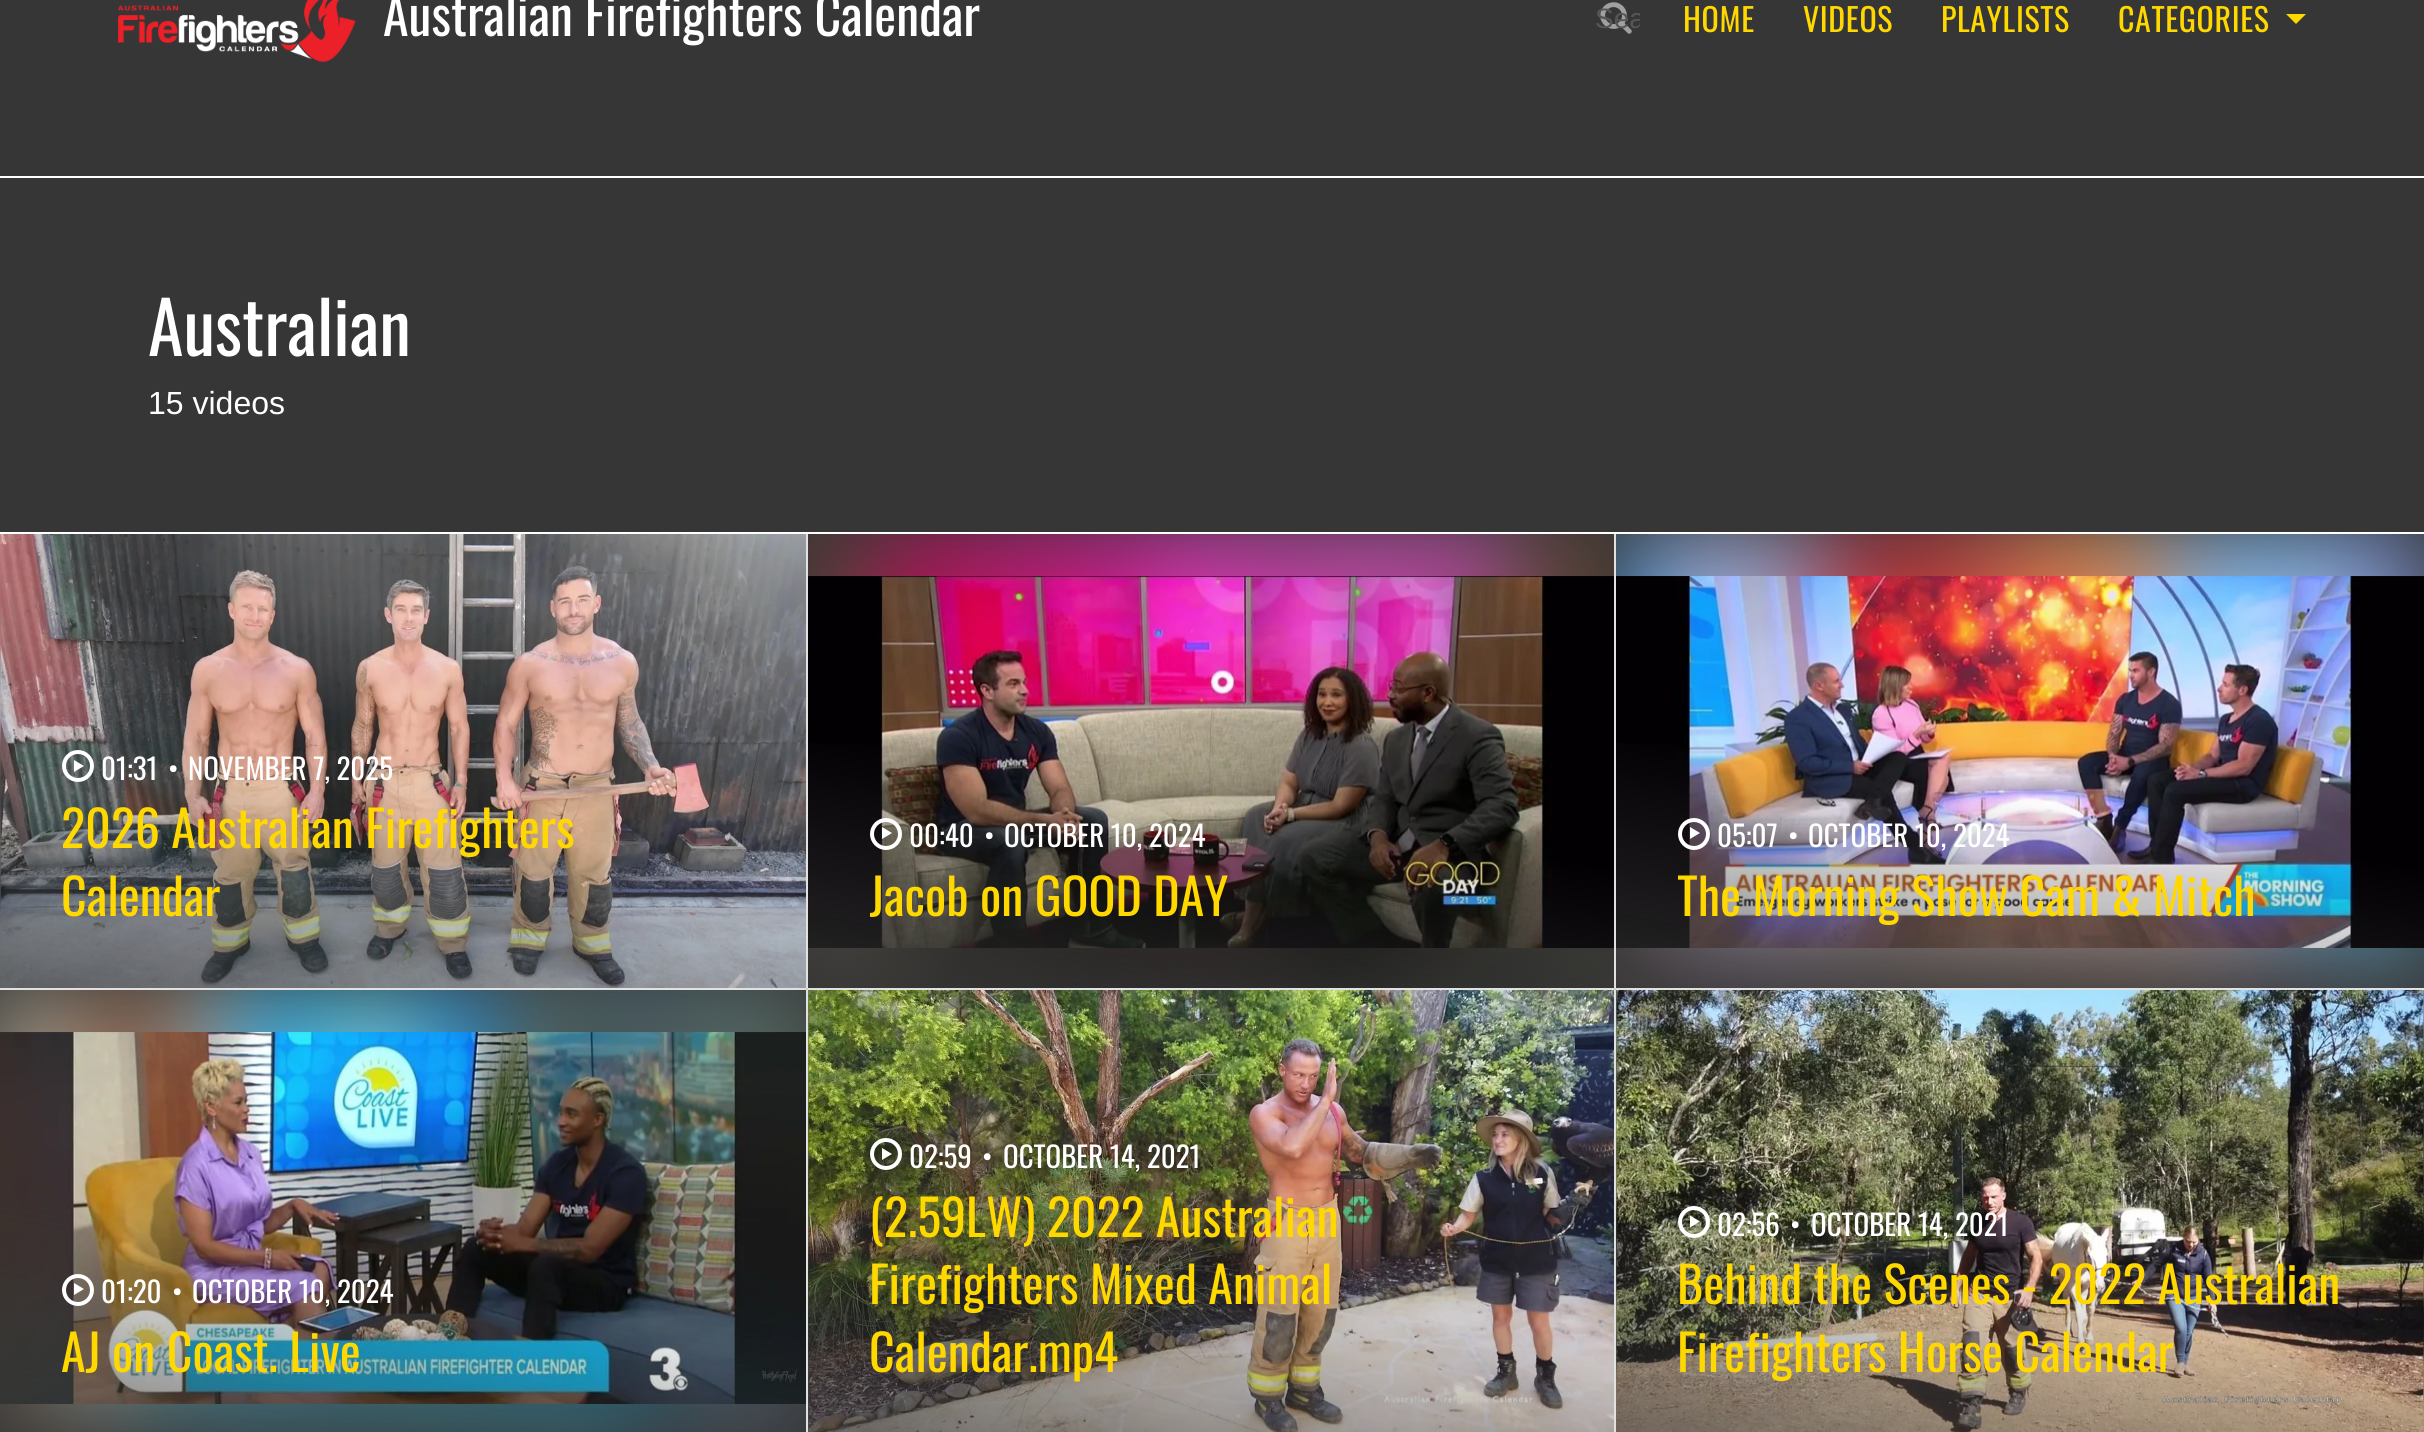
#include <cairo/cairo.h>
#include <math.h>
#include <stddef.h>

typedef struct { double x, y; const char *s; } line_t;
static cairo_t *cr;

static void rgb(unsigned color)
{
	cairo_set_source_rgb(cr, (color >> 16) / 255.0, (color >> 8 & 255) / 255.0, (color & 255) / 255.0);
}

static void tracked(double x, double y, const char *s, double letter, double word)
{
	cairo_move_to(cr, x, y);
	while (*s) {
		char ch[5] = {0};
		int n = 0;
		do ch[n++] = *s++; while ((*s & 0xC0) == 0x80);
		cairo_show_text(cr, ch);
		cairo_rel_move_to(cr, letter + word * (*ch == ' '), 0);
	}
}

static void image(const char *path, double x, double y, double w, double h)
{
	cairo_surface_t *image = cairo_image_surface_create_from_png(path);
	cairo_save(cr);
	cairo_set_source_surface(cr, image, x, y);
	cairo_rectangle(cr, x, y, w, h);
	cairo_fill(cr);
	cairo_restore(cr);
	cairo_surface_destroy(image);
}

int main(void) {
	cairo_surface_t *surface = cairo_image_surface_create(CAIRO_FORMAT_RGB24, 2424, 1432);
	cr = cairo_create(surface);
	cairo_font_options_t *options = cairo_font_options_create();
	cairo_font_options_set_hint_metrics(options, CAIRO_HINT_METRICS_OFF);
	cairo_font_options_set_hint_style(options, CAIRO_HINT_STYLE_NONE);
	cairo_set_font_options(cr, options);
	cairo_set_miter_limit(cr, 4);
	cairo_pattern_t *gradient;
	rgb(0x363636);
	cairo_paint(cr);
	rgb(0xffffff);
	cairo_rectangle(cr, 0, 176, 2424, 2);
	cairo_fill(cr);
	image("img/1.png", 118, 0, 238, 63);
	image("img/2.png", 1600, 2, 32, 32);
	rgb(0xffd800);
	cairo_new_path(cr);
	cairo_move_to(cr, 2286, 14);
	cairo_line_to(cr, 2306, 14);
	cairo_line_to(cr, 2296, 24);
	cairo_close_path(cr);
	cairo_fill(cr);
	rgb(0xffffff);
	cairo_rectangle(cr, 0, 532, 2424, 2);
	cairo_fill(cr);
	rgb(0xe1e1e1);
	cairo_new_path(cr);
	cairo_move_to(cr, 808, 534);
	cairo_line_to(cr, 808, 990);
	cairo_line_to(cr, 806, 988);
	cairo_line_to(cr, 806, 534);
	cairo_close_path(cr);
	cairo_fill(cr);
	cairo_set_source_rgba(cr, 1, 1, 1, 0.85);
	cairo_new_path(cr);
	cairo_move_to(cr, 808, 990);
	cairo_line_to(cr, 0, 990);
	cairo_line_to(cr, 0, 988);
	cairo_line_to(cr, 806, 988);
	cairo_close_path(cr);
	cairo_fill(cr);
	image("img/3.png", 0, 534, 806, 454);
	rgb(0xffffff);
	cairo_new_path(cr);
	cairo_move_to(cr, 74, 772);
	cairo_line_to(cr, 74, 760);
	cairo_line_to(cr, 84, 766);
	cairo_close_path(cr);
	cairo_fill(cr);
	cairo_arc(cr, 78, 766, 14, 0, 2 * M_PI);
	cairo_set_line_width(cr, 4);
	cairo_stroke(cr);
	rgb(0xe1e1e1);
	cairo_new_path(cr);
	cairo_move_to(cr, 1616, 534);
	cairo_line_to(cr, 1616, 990);
	cairo_line_to(cr, 1614, 988);
	cairo_line_to(cr, 1614, 534);
	cairo_close_path(cr);
	cairo_fill(cr);
	cairo_set_source_rgba(cr, 1, 1, 1, 0.85);
	cairo_new_path(cr);
	cairo_move_to(cr, 1616, 990);
	cairo_line_to(cr, 808, 990);
	cairo_line_to(cr, 808, 988);
	cairo_line_to(cr, 1614, 988);
	cairo_close_path(cr);
	cairo_fill(cr);
	image("img/4.png", 808, 534, 806, 454);
	image("img/5.png", 808, 576, 806, 372);
	gradient = cairo_pattern_create_linear(1262, 472, 1160, 1050);
	cairo_pattern_add_color_stop_rgba(gradient, 0.56, 0.212, 0.212, 0.212, 0);
	cairo_pattern_add_color_stop_rgba(gradient, 1, 0.212, 0.212, 0.212, 0.7);
	cairo_set_source(cr, gradient);
	cairo_pattern_destroy(gradient);
	cairo_rectangle(cr, 808, 743, 806, 245);
	cairo_fill(cr);
	rgb(0xffffff);
	cairo_new_path(cr);
	cairo_move_to(cr, 882, 839);
	cairo_line_to(cr, 882, 827);
	cairo_line_to(cr, 892, 833);
	cairo_close_path(cr);
	cairo_fill(cr);
	cairo_arc(cr, 886, 834, 14, 0, 2 * M_PI);
	cairo_stroke(cr);
	rgb(0xe1e1e1);
	cairo_rectangle(cr, 1616, 988, 808, 2);
	cairo_fill(cr);
	image("img/6.png", 1616, 534, 808, 454);
	image("img/7.png", 1616, 576, 808, 372);
	gradient = cairo_pattern_create_linear(2071, 472, 1969, 1050);
	cairo_pattern_add_color_stop_rgba(gradient, 0.56, 0.212, 0.212, 0.212, 0);
	cairo_pattern_add_color_stop_rgba(gradient, 1, 0.212, 0.212, 0.212, 0.7);
	cairo_set_source(cr, gradient);
	cairo_pattern_destroy(gradient);
	cairo_rectangle(cr, 1616, 743, 808, 245);
	cairo_fill(cr);
	rgb(0xffffff);
	cairo_new_path(cr);
	cairo_move_to(cr, 1690, 839);
	cairo_line_to(cr, 1690, 827);
	cairo_line_to(cr, 1700, 833);
	cairo_close_path(cr);
	cairo_fill(cr);
	cairo_arc(cr, 1694, 834, 14, 0, 2 * M_PI);
	cairo_stroke(cr);
	rgb(0xe1e1e1);
	cairo_new_path(cr);
	cairo_move_to(cr, 808, 990);
	cairo_line_to(cr, 808, 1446);
	cairo_line_to(cr, 806, 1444);
	cairo_line_to(cr, 806, 990);
	cairo_close_path(cr);
	cairo_fill(cr);
	image("img/8.png", 0, 990, 806, 442);
	image("img/9.png", 0, 1032, 806, 372);
	gradient = cairo_pattern_create_linear(454, 928, 352, 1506);
	cairo_pattern_add_color_stop_rgba(gradient, 0.56, 0.212, 0.212, 0.212, 0);
	cairo_pattern_add_color_stop_rgba(gradient, 1, 0.212, 0.212, 0.212, 0.7);
	cairo_set_source(cr, gradient);
	cairo_pattern_destroy(gradient);
	cairo_rectangle(cr, 0, 1201, 806, 231);
	cairo_fill(cr);
	rgb(0xffffff);
	cairo_new_path(cr);
	cairo_move_to(cr, 74, 1295);
	cairo_line_to(cr, 74, 1283);
	cairo_line_to(cr, 84, 1289);
	cairo_close_path(cr);
	cairo_fill(cr);
	cairo_arc(cr, 78, 1290, 14, 0, 2 * M_PI);
	cairo_stroke(cr);
	rgb(0xe1e1e1);
	cairo_new_path(cr);
	cairo_move_to(cr, 1616, 990);
	cairo_line_to(cr, 1616, 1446);
	cairo_line_to(cr, 1614, 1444);
	cairo_line_to(cr, 1614, 990);
	cairo_close_path(cr);
	cairo_fill(cr);
	image("img/10.png", 808, 990, 806, 442);
	rgb(0xffffff);
	cairo_new_path(cr);
	cairo_move_to(cr, 882, 1160);
	cairo_line_to(cr, 882, 1148);
	cairo_line_to(cr, 892, 1154);
	cairo_close_path(cr);
	cairo_fill(cr);
	cairo_arc(cr, 886, 1154, 14, 0, 2 * M_PI);
	cairo_stroke(cr);
	image("img/11.png", 1616, 990, 808, 442);
	cairo_new_path(cr);
	cairo_move_to(cr, 1690, 1227.5);
	cairo_line_to(cr, 1690, 1215.5);
	cairo_line_to(cr, 1700, 1221.5);
	cairo_close_path(cr);
	cairo_fill(cr);
	cairo_arc(cr, 1694, 1222, 14, 0, 2 * M_PI);
	cairo_stroke(cr);
	cairo_select_font_face(cr, "Oswald", CAIRO_FONT_SLANT_NORMAL, CAIRO_FONT_WEIGHT_NORMAL);
	cairo_set_font_size(cr, 52);
	cairo_move_to(cr, 383, 36);
	cairo_show_text(cr, "Australian Firefighters Calendar");
	cairo_save(cr);
	cairo_rectangle(cr, 1594, 2, 46, 32);
	cairo_clip(cr);
	cairo_select_font_face(cr, "Liberation Sans", CAIRO_FONT_SLANT_NORMAL, CAIRO_FONT_WEIGHT_NORMAL);
	cairo_set_font_size(cr, 28);
	rgb(0x565656);
	cairo_move_to(cr, 1595, 28);
	cairo_show_text(cr, "Sea");
	cairo_restore(cr);
	cairo_set_font_size(cr, 32);
	rgb(0xffd800);
	{
		static const line_t items[] = {
			{1683, 32, "HOME"},
			{1803, 32, "VIDEOS"},
			{1941, 32, "PLAYLISTS"},
			{2118, 32, "CATEGORIES"},
		};
		for (size_t i = 0; i < sizeof items / sizeof *items; i++) {
			tracked(items[i].x, items[i].y, items[i].s, 0.6, 0);
		}
	}
	cairo_set_font_size(cr, 72);
	rgb(0xffffff);
	cairo_move_to(cr, 148, 356);
	cairo_show_text(cr, "Australian");
	cairo_select_font_face(cr, "Liberation Sans", CAIRO_FONT_SLANT_NORMAL, CAIRO_FONT_WEIGHT_NORMAL);
	cairo_set_font_size(cr, 32);
	cairo_move_to(cr, 148, 414);
	cairo_show_text(cr, "15 videos");
	cairo_select_font_face(cr, "Oswald", CAIRO_FONT_SLANT_NORMAL, CAIRO_FONT_WEIGHT_NORMAL);
	cairo_set_font_size(cr, 29);
	{
		static const line_t items[] = {
			{101, 780, "01:31"},
			{168, 780, "•"},
			{188, 780, "NOVEMBER 7, 2025"},
		};
		for (size_t i = 0; i < sizeof items / sizeof *items; i++) {
			cairo_move_to(cr, items[i].x, items[i].y);
			cairo_show_text(cr, items[i].s);
		}
	}
	cairo_set_font_size(cr, 50);
	rgb(0xffd800);
	cairo_move_to(cr, 61, 848);
	cairo_show_text(cr, "2026 Australian Firefighters");
	cairo_move_to(cr, 61, 916);
	cairo_show_text(cr, "Calendar");
	cairo_set_font_size(cr, 29);
	rgb(0xffffff);
	{
		static const line_t items[] = {
			{909, 847, "00:40"},
			{984, 847, "•"},
			{1004, 847, "OCTOBER 10, 2024"},
		};
		for (size_t i = 0; i < sizeof items / sizeof *items; i++) {
			cairo_move_to(cr, items[i].x, items[i].y);
			cairo_show_text(cr, items[i].s);
		}
	}
	cairo_save(cr);
	cairo_rectangle(cr, 870, 860, 682, 68);
	cairo_clip(cr);
	cairo_set_font_size(cr, 50);
	rgb(0xffd800);
	cairo_move_to(cr, 869, 916);
	cairo_show_text(cr, "Jacob on GOOD DAY");
	cairo_restore(cr);
	{
		static const line_t items[] = {
			{1717, 847, "05:07"},
			{1788, 847, "•"},
			{1808, 847, "OCTOBER 10, 2024"},
		};
		for (size_t i = 0; i < sizeof items / sizeof *items; i++) {
			cairo_move_to(cr, items[i].x, items[i].y);
			cairo_show_text(cr, items[i].s);
		}
	}
	cairo_save(cr);
	cairo_rectangle(cr, 1678, 860, 684, 68);
	cairo_clip(cr);
	cairo_set_font_size(cr, 50);
	rgb(0xffd800);
	cairo_move_to(cr, 1677, 916);
	cairo_show_text(cr, "The Morning Show Cam & Mitch");
	cairo_restore(cr);
	{
		static const line_t items[] = {
			{101, 1303, "01:20"},
			{172, 1303, "•"},
			{192, 1303, "OCTOBER 10, 2024"},
		};
		for (size_t i = 0; i < sizeof items / sizeof *items; i++) {
			cairo_move_to(cr, items[i].x, items[i].y);
			cairo_show_text(cr, items[i].s);
		}
	}
	cairo_set_font_size(cr, 50);
	rgb(0xffd800);
	cairo_move_to(cr, 61, 1372);
	cairo_show_text(cr, "AJ on Coast. Live");
	cairo_set_font_size(cr, 29);
	rgb(0xffffff);
	{
		static const line_t items[] = {
			{909, 1168, "02:59"},
			{982, 1168, "•"},
			{1003, 1168, "OCTOBER 14, 2021"},
		};
		for (size_t i = 0; i < sizeof items / sizeof *items; i++) {
			cairo_move_to(cr, items[i].x, items[i].y);
			cairo_show_text(cr, items[i].s);
		}
	}
	cairo_set_font_size(cr, 50);
	rgb(0xffd800);
	{
		static const line_t items[] = {
			{869, 1237, "(2.59LW) 2022 Australian"},
			{869, 1304, "Firefighters Mixed Animal"},
			{869, 1372, "Calendar.mp4"},
		};
		for (size_t i = 0; i < sizeof items / sizeof *items; i++) {
			cairo_move_to(cr, items[i].x, items[i].y);
			cairo_show_text(cr, items[i].s);
		}
	}
	cairo_set_font_size(cr, 29);
	rgb(0xffffff);
	{
		static const line_t items[] = {
			{1717, 1236, "02:56"},
			{1790, 1236, "•"},
			{1811, 1236, "OCTOBER 14, 2021"},
		};
		for (size_t i = 0; i < sizeof items / sizeof *items; i++) {
			cairo_move_to(cr, items[i].x, items[i].y);
			cairo_show_text(cr, items[i].s);
		}
	}
	cairo_set_font_size(cr, 50);
	rgb(0xffd800);
	cairo_move_to(cr, 1677, 1304);
	cairo_show_text(cr, "Behind the Scenes - 2022 Australian");
	cairo_move_to(cr, 1677, 1372);
	cairo_show_text(cr, "Firefighters Horse Calendar");
	cairo_surface_write_to_png(surface, "page.png");
	cairo_font_options_destroy(options);
	cairo_destroy(cr);
	cairo_surface_destroy(surface);
	return 0;
}
